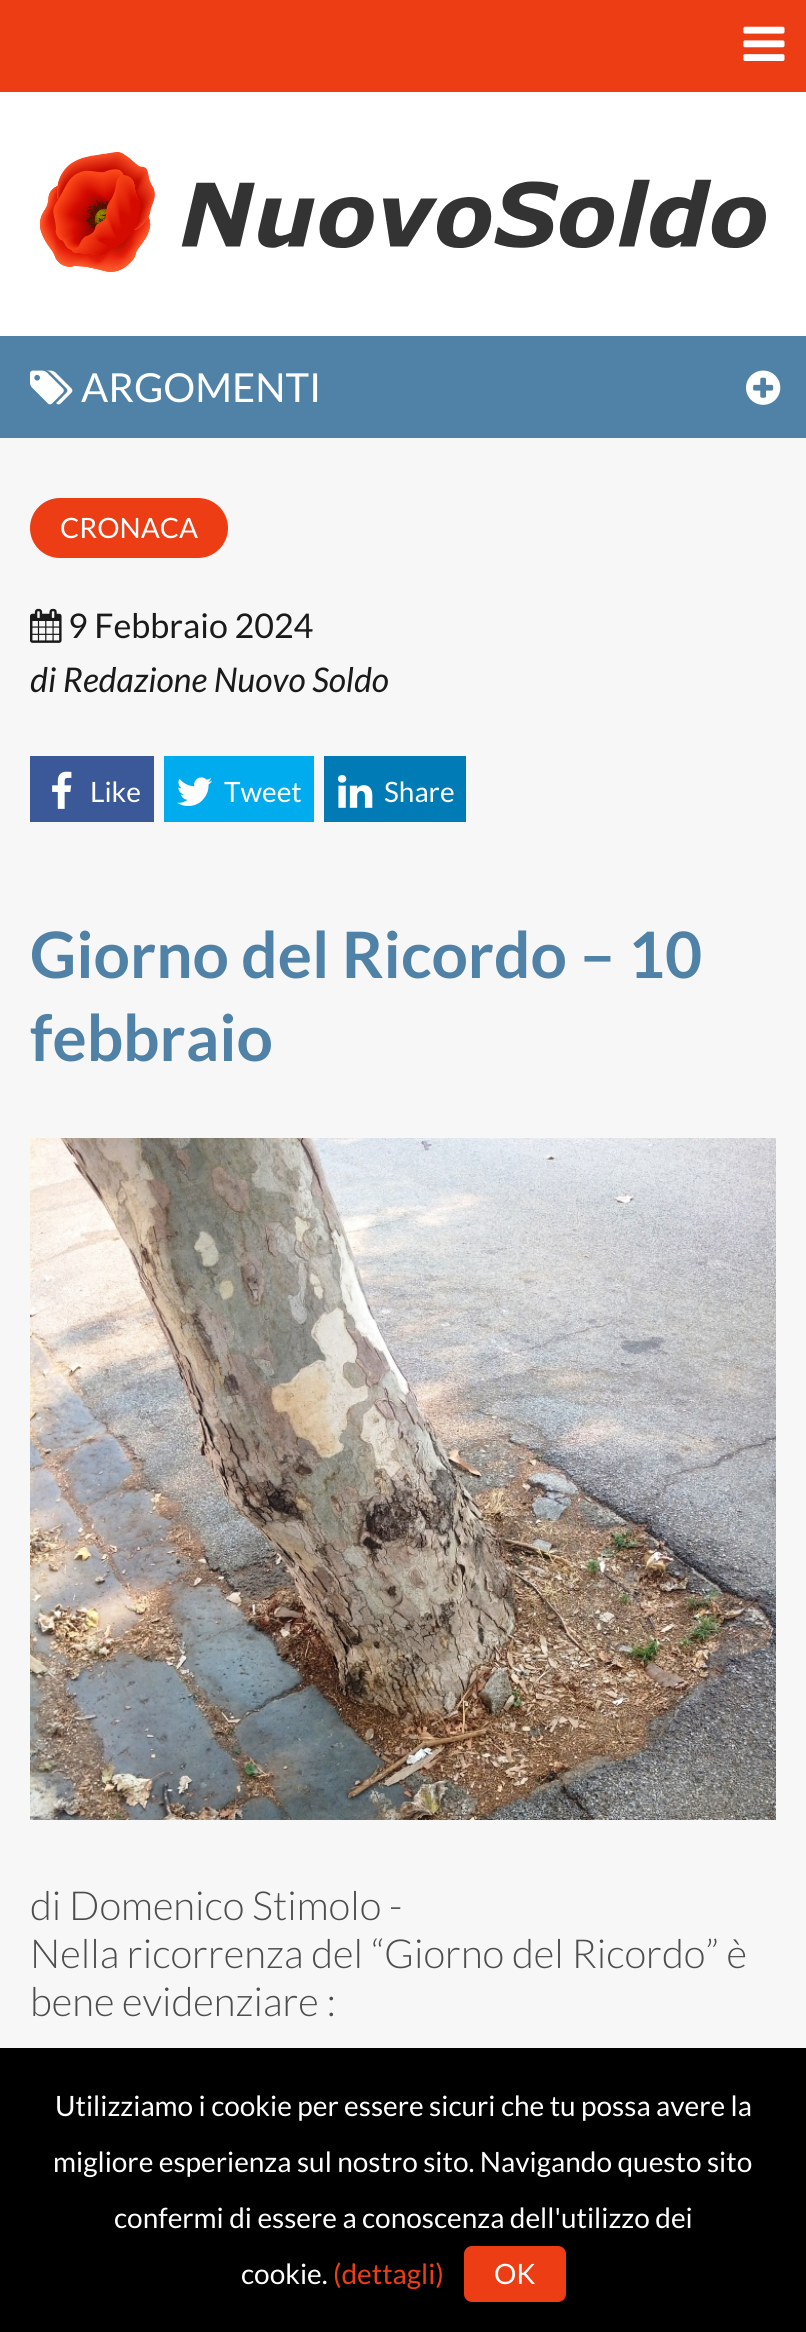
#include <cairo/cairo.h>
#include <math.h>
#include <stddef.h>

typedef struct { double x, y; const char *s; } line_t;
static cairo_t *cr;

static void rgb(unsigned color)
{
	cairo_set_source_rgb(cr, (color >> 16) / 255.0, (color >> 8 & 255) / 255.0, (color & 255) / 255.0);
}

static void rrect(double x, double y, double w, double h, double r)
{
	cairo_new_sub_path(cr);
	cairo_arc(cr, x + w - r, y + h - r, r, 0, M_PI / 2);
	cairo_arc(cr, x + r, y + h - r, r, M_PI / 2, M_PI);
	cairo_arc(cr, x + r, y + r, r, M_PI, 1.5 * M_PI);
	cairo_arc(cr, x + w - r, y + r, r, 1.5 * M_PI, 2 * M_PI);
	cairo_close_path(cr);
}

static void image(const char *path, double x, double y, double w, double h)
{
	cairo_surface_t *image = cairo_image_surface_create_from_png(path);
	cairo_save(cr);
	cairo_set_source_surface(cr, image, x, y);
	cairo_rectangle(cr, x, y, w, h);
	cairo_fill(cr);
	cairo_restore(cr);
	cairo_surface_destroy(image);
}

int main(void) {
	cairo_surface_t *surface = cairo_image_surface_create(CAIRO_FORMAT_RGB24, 806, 2332);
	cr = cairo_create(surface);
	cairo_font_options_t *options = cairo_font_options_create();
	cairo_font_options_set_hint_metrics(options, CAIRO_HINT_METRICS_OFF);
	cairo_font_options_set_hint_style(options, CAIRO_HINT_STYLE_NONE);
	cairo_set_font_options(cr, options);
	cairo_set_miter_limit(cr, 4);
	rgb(0xffffff);
	cairo_paint(cr);
	rgb(0xed3d14);
	cairo_rectangle(cr, 0, 0, 806, 92);
	cairo_fill(cr);
	image("img/1.png", 743, 26, 42, 35);
	image("img/2.png", 40, 152, 726, 120);
	rgb(0x4f82a6);
	cairo_rectangle(cr, 0, 336, 806, 102);
	cairo_fill(cr);
	image("img/3.png", 30, 370, 43, 35);
	image("img/4.png", 746, 370, 35, 35);
	rgb(0xf7f7f7);
	cairo_rectangle(cr, 0, 438, 806, 1610);
	cairo_fill(cr);
	rgb(0xed3d14);
	rrect(30, 498, 198, 60, 30);
	cairo_fill(cr);
	image("img/5.png", 30, 608, 32, 35);
	rgb(0x3b5998);
	cairo_rectangle(cr, 30, 756, 124, 66);
	cairo_fill(cr);
	image("img/6.png", 52, 771, 20, 38);
	rgb(0x00aced);
	cairo_rectangle(cr, 164, 756, 150, 66);
	cairo_fill(cr);
	image("img/7.png", 177, 777, 35, 29);
	rgb(0x007bb6);
	cairo_rectangle(cr, 324, 756, 142, 66);
	cairo_fill(cr);
	image("img/8.png", 338, 775, 35, 33);
	image("img/9.png", 30, 1138, 746, 682);
	rgb(0x000000);
	cairo_rectangle(cr, 0, 2048, 806, 284);
	cairo_fill(cr);
	rgb(0xed3d14);
	rrect(464, 2246, 102, 56, 8);
	cairo_fill(cr);
	cairo_select_font_face(cr, "Lato", CAIRO_FONT_SLANT_NORMAL, CAIRO_FONT_WEIGHT_NORMAL);
	cairo_set_font_size(cr, 40);
	rgb(0xffffff);
	cairo_move_to(cr, 81, 402);
	cairo_show_text(cr, "ARGOMENTI");
	cairo_set_font_size(cr, 28);
	cairo_move_to(cr, 60, 538);
	cairo_show_text(cr, "CRONACA");
	cairo_set_font_size(cr, 34);
	rgb(0x1a1a1a);
	cairo_move_to(cr, 68, 638);
	cairo_show_text(cr, "9 Febbraio 2024");
	cairo_select_font_face(cr, "Lato", CAIRO_FONT_SLANT_ITALIC, CAIRO_FONT_WEIGHT_NORMAL);
	cairo_move_to(cr, 30, 692);
	cairo_show_text(cr, "di Redazione Nuovo Soldo");
	cairo_select_font_face(cr, "Lato", CAIRO_FONT_SLANT_NORMAL, CAIRO_FONT_WEIGHT_NORMAL);
	cairo_set_font_size(cr, 28);
	rgb(0xffffff);
	{
		static const line_t items[] = {
			{90, 802, "Like"},
			{224, 802, "Tweet"},
			{384, 802, "Share"},
		};
		for (size_t i = 0; i < sizeof items / sizeof *items; i++) {
			cairo_move_to(cr, items[i].x, items[i].y);
			cairo_show_text(cr, items[i].s);
		}
	}
	cairo_select_font_face(cr, "Lato", CAIRO_FONT_SLANT_NORMAL, CAIRO_FONT_WEIGHT_BOLD);
	cairo_set_font_size(cr, 64);
	rgb(0x4f82a6);
	cairo_move_to(cr, 30, 978);
	cairo_show_text(cr, "Giorno del Ricordo – 10");
	cairo_move_to(cr, 30, 1061);
	cairo_show_text(cr, "febbraio");
	cairo_select_font_face(cr, "Lato Light", CAIRO_FONT_SLANT_NORMAL, CAIRO_FONT_WEIGHT_NORMAL);
	cairo_set_font_size(cr, 40);
	rgb(0x4d4d4d);
	{
		static const line_t items[] = {
			{30, 1920, "di Domenico Stimolo -"},
			{30, 1968, "Nella ricorrenza del “Giorno del Ricordo” è"},
			{30, 2016, "bene evidenziare :"},
		};
		for (size_t i = 0; i < sizeof items / sizeof *items; i++) {
			cairo_move_to(cr, items[i].x, items[i].y);
			cairo_show_text(cr, items[i].s);
		}
	}
	cairo_select_font_face(cr, "Lato", CAIRO_FONT_SLANT_NORMAL, CAIRO_FONT_WEIGHT_NORMAL);
	cairo_set_font_size(cr, 28);
	rgb(0xffffff);
	{
		static const line_t items[] = {
			{55, 2116, "Utilizziamo i cookie per essere sicuri che tu possa avere la"},
			{53, 2172, "migliore esperienza sul nostro sito. Navigando questo sito"},
			{114, 2228, "confermi di essere a conoscenza dell'utilizzo dei"},
			{241, 2284, "cookie."},
		};
		for (size_t i = 0; i < sizeof items / sizeof *items; i++) {
			cairo_move_to(cr, items[i].x, items[i].y);
			cairo_show_text(cr, items[i].s);
		}
	}
	rgb(0xed3d14);
	cairo_move_to(cr, 333, 2284);
	cairo_show_text(cr, "(dettagli)");
	rgb(0xffffff);
	cairo_move_to(cr, 494, 2284);
	cairo_show_text(cr, "OK");
	cairo_surface_write_to_png(surface, "page.png");
	cairo_font_options_destroy(options);
	cairo_destroy(cr);
	cairo_surface_destroy(surface);
	return 0;
}
